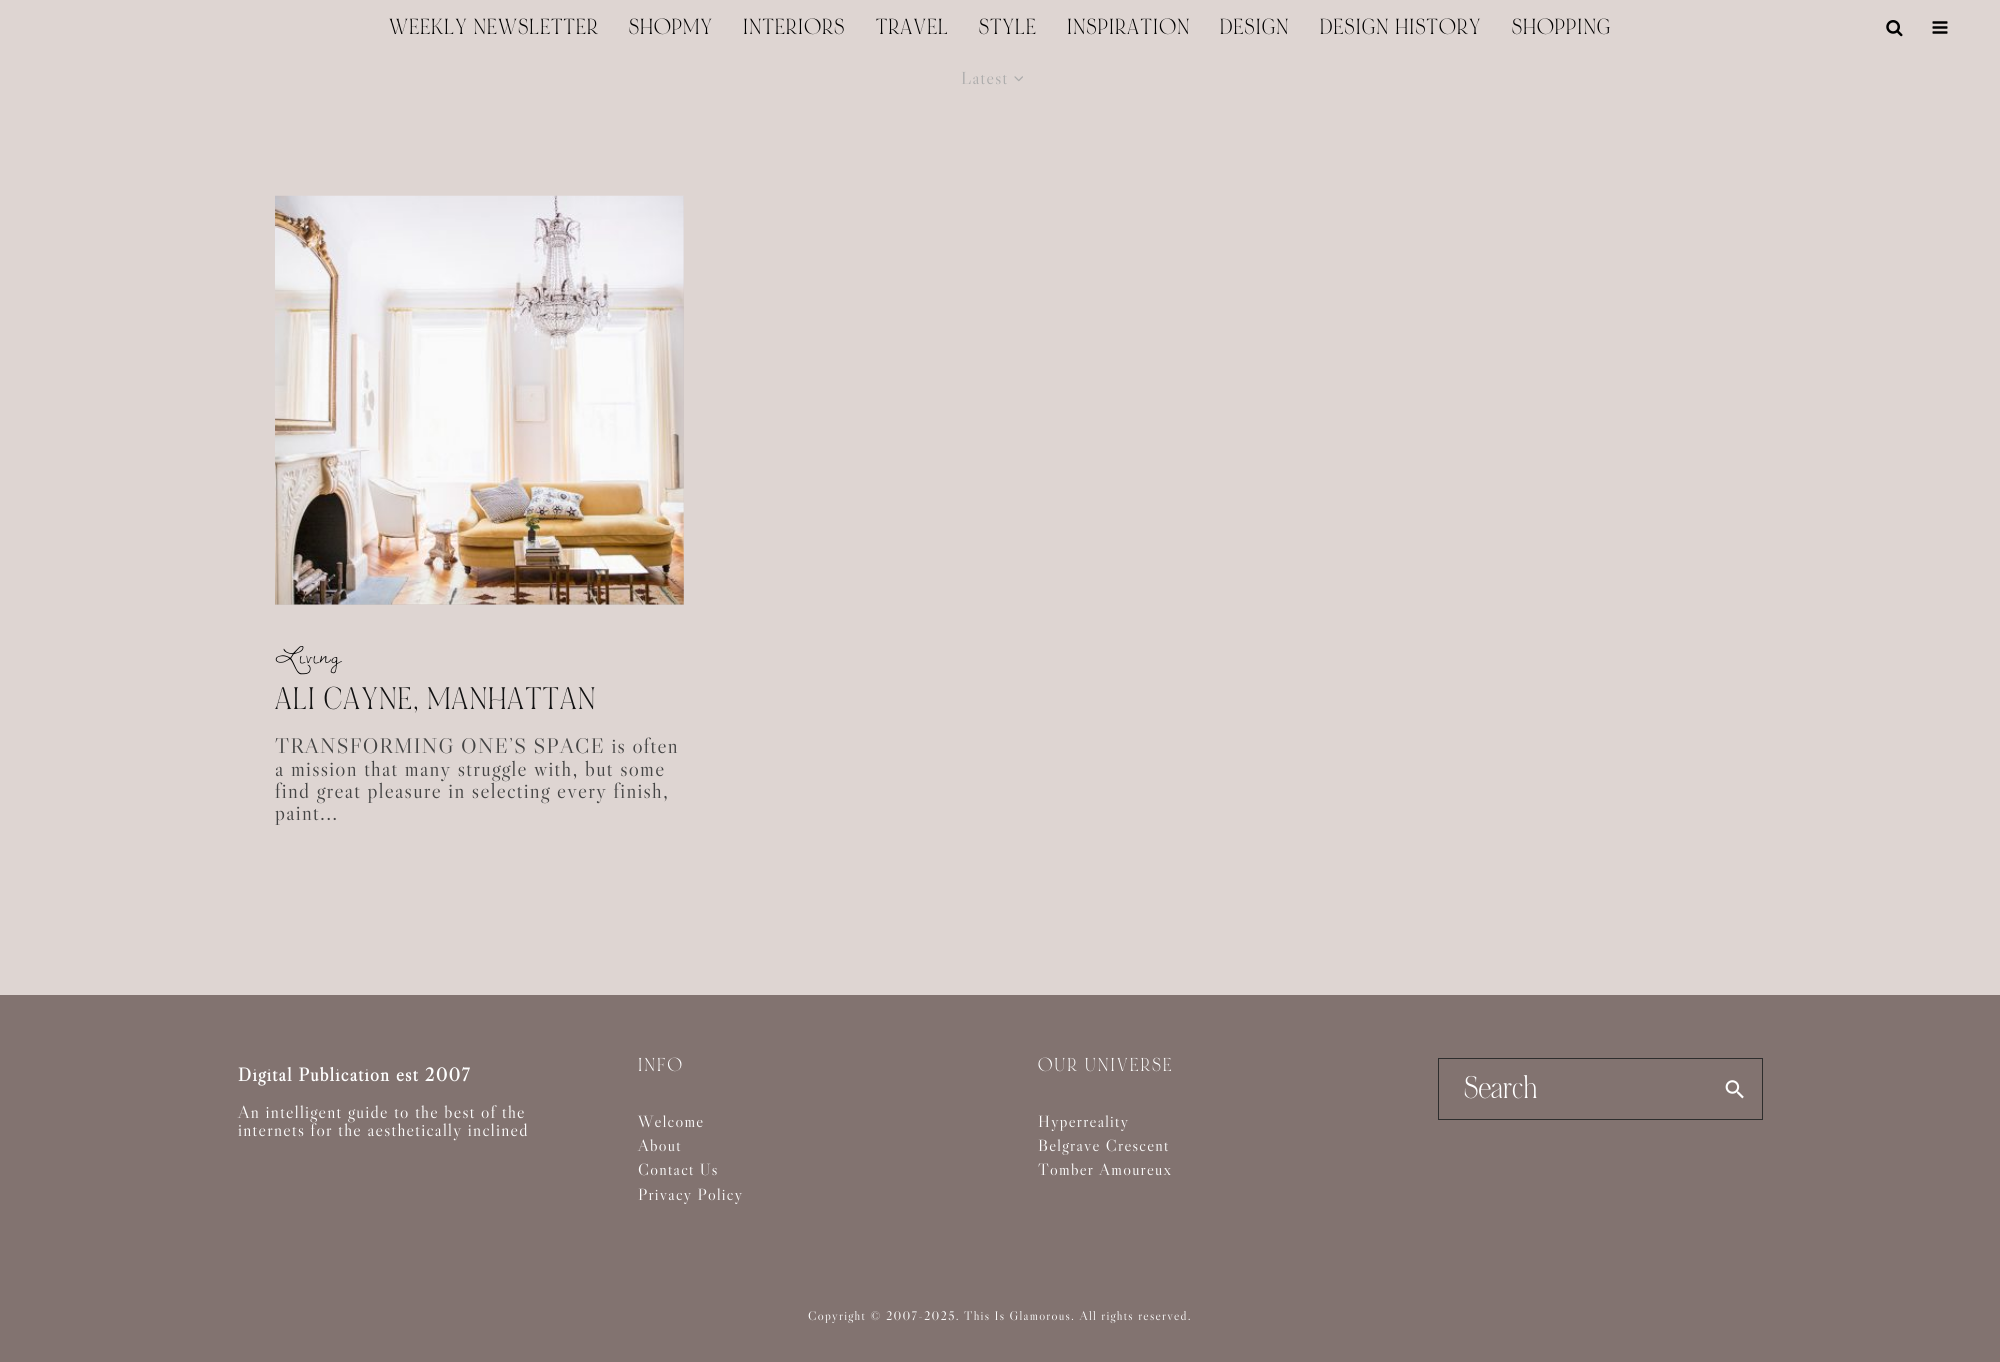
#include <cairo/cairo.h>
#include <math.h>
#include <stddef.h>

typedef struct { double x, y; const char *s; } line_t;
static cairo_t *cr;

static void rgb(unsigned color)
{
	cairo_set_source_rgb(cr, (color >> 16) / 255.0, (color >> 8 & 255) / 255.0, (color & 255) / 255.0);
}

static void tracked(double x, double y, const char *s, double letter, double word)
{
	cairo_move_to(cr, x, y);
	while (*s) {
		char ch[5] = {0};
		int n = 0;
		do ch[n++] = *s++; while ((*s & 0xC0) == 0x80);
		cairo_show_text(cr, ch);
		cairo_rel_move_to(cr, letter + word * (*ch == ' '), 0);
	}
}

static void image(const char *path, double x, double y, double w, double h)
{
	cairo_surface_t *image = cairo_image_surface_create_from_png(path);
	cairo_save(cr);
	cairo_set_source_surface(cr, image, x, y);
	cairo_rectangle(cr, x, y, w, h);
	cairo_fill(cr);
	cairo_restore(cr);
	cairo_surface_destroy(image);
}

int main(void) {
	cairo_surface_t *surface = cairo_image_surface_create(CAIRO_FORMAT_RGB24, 2000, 1362);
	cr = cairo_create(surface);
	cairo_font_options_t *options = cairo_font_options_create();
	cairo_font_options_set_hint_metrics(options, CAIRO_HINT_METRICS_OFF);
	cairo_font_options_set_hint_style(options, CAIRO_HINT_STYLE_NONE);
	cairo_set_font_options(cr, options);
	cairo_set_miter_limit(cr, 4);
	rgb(0xded5d2);
	cairo_paint(cr);
	image("img/1.png", 1886, 20, 17, 17);
	image("img/2.png", 1932, 21, 16, 13);
	image("img/3.png", 1014, 76, 9, 6);
	rgb(0xcdc4c1);
	cairo_rectangle(cr, 275, 196, 409, 409);
	cairo_fill(cr);
	image("img/4.png", 275, 195, 409, 410);
	rgb(0x827370);
	cairo_rectangle(cr, 0, 995, 2000, 367);
	cairo_fill(cr);
	cairo_rectangle(cr, 1438.5, 1058.5, 324, 61);
	rgb(0x2d2d2d);
	cairo_set_line_width(cr, 1);
	cairo_stroke(cr);
	image("img/5.png", 1725, 1080, 19, 19);
	cairo_select_font_face(cr, "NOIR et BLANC", CAIRO_FONT_SLANT_NORMAL, CAIRO_FONT_WEIGHT_NORMAL);
	cairo_set_font_size(cr, 17.5);
	rgb(0x000000);
	{
		static const line_t items[] = {
			{389, 34, "WEEKLY NEWSLETTER"},
			{629, 34, "SHOPMY"},
			{743, 34, "INTERIORS"},
			{876, 34, "TRAVEL"},
			{979, 34, "STYLE"},
			{1067, 34, "INSPIRATION"},
			{1220, 34, "DESIGN"},
			{1320, 34, "DESIGN HISTORY"},
			{1512, 34, "SHOPPING"},
		};
		for (size_t i = 0; i < sizeof items / sizeof *items; i++) {
			tracked(items[i].x, items[i].y, items[i].s, 1.25, 0);
		}
	}
	cairo_select_font_face(cr, "Libre Caslon Display", CAIRO_FONT_SLANT_NORMAL, CAIRO_FONT_WEIGHT_NORMAL);
	rgb(0xaaaaaa);
	tracked(961, 84, "Latest", 1.25, 0);
	cairo_select_font_face(cr, "Dawning of a New Day", CAIRO_FONT_SLANT_NORMAL, CAIRO_FONT_WEIGHT_NORMAL);
	cairo_set_font_size(cr, 25);
	rgb(0x000000);
	tracked(275, 663, "Living", 1.25, 0);
	cairo_select_font_face(cr, "NOIR et BLANC", CAIRO_FONT_SLANT_NORMAL, CAIRO_FONT_WEIGHT_NORMAL);
	rgb(0x111111);
	tracked(275, 709, "ALI CAYNE, MANHATTAN", 1.25, 0);
	cairo_select_font_face(cr, "Libre Caslon Display", CAIRO_FONT_SLANT_NORMAL, CAIRO_FONT_WEIGHT_NORMAL);
	cairo_set_font_size(cr, 21.25);
	rgb(0x444444);
	{
		static const line_t items[] = {
			{275, 753, "TRANSFORMING ONE’S SPACE is often"},
			{275, 776, "a mission that many struggle with, but some"},
			{275, 798, "find great pleasure in selecting every finish,"},
			{275, 820, "paint..."},
		};
		for (size_t i = 0; i < sizeof items / sizeof *items; i++) {
			tracked(items[i].x, items[i].y, items[i].s, 1.25, 0);
		}
	}
	cairo_select_font_face(cr, "Libre Caslon Display", CAIRO_FONT_SLANT_NORMAL, CAIRO_FONT_WEIGHT_BOLD);
	cairo_set_font_size(cr, 18.75);
	rgb(0xffffff);
	tracked(238, 1081, "Digital Publication est 2007", 1.25, 0);
	cairo_select_font_face(cr, "Libre Caslon Display", CAIRO_FONT_SLANT_NORMAL, CAIRO_FONT_WEIGHT_NORMAL);
	cairo_set_font_size(cr, 17.5);
	tracked(238, 1118, "An intelligent guide to the best of the", 1.25, 0);
	tracked(238, 1136, "internets for the aesthetically inclined", 1.25, 0);
	cairo_select_font_face(cr, "NOIR et BLANC", CAIRO_FONT_SLANT_NORMAL, CAIRO_FONT_WEIGHT_NORMAL);
	cairo_set_font_size(cr, 15);
	tracked(638, 1071, "INFO", 2.25, 0);
	cairo_select_font_face(cr, "Libre Caslon Display", CAIRO_FONT_SLANT_NORMAL, CAIRO_FONT_WEIGHT_NORMAL);
	cairo_set_font_size(cr, 16.25);
	{
		static const line_t items[] = {
			{638, 1127, "Welcome"},
			{638, 1151, "About"},
			{638, 1175, "Contact Us"},
			{638, 1200, "Privacy Policy"},
		};
		for (size_t i = 0; i < sizeof items / sizeof *items; i++) {
			tracked(items[i].x, items[i].y, items[i].s, 1.25, 0);
		}
	}
	cairo_select_font_face(cr, "NOIR et BLANC", CAIRO_FONT_SLANT_NORMAL, CAIRO_FONT_WEIGHT_NORMAL);
	cairo_set_font_size(cr, 15);
	tracked(1038, 1071, "OUR UNIVERSE", 2.25, 0);
	cairo_select_font_face(cr, "Libre Caslon Display", CAIRO_FONT_SLANT_NORMAL, CAIRO_FONT_WEIGHT_NORMAL);
	cairo_set_font_size(cr, 16.25);
	{
		static const line_t items[] = {
			{1038, 1127, "Hyperreality"},
			{1038, 1151, "Belgrave Crescent"},
			{1038, 1175, "Tomber Amoureux"},
		};
		for (size_t i = 0; i < sizeof items / sizeof *items; i++) {
			tracked(items[i].x, items[i].y, items[i].s, 1.25, 0);
		}
	}
	cairo_select_font_face(cr, "NOIR et BLANC", CAIRO_FONT_SLANT_NORMAL, CAIRO_FONT_WEIGHT_NORMAL);
	cairo_set_font_size(cr, 25);
	cairo_move_to(cr, 1464, 1098);
	cairo_show_text(cr, "Search");
	cairo_select_font_face(cr, "Libre Caslon Display", CAIRO_FONT_SLANT_NORMAL, CAIRO_FONT_WEIGHT_NORMAL);
	cairo_set_font_size(cr, 12.5);
	tracked(808, 1320, "Copyright © 2007-2025. This Is Glamorous. All rights reserved.", 1.25, 0);
	cairo_surface_write_to_png(surface, "page.png");
	cairo_font_options_destroy(options);
	cairo_destroy(cr);
	cairo_surface_destroy(surface);
	return 0;
}
